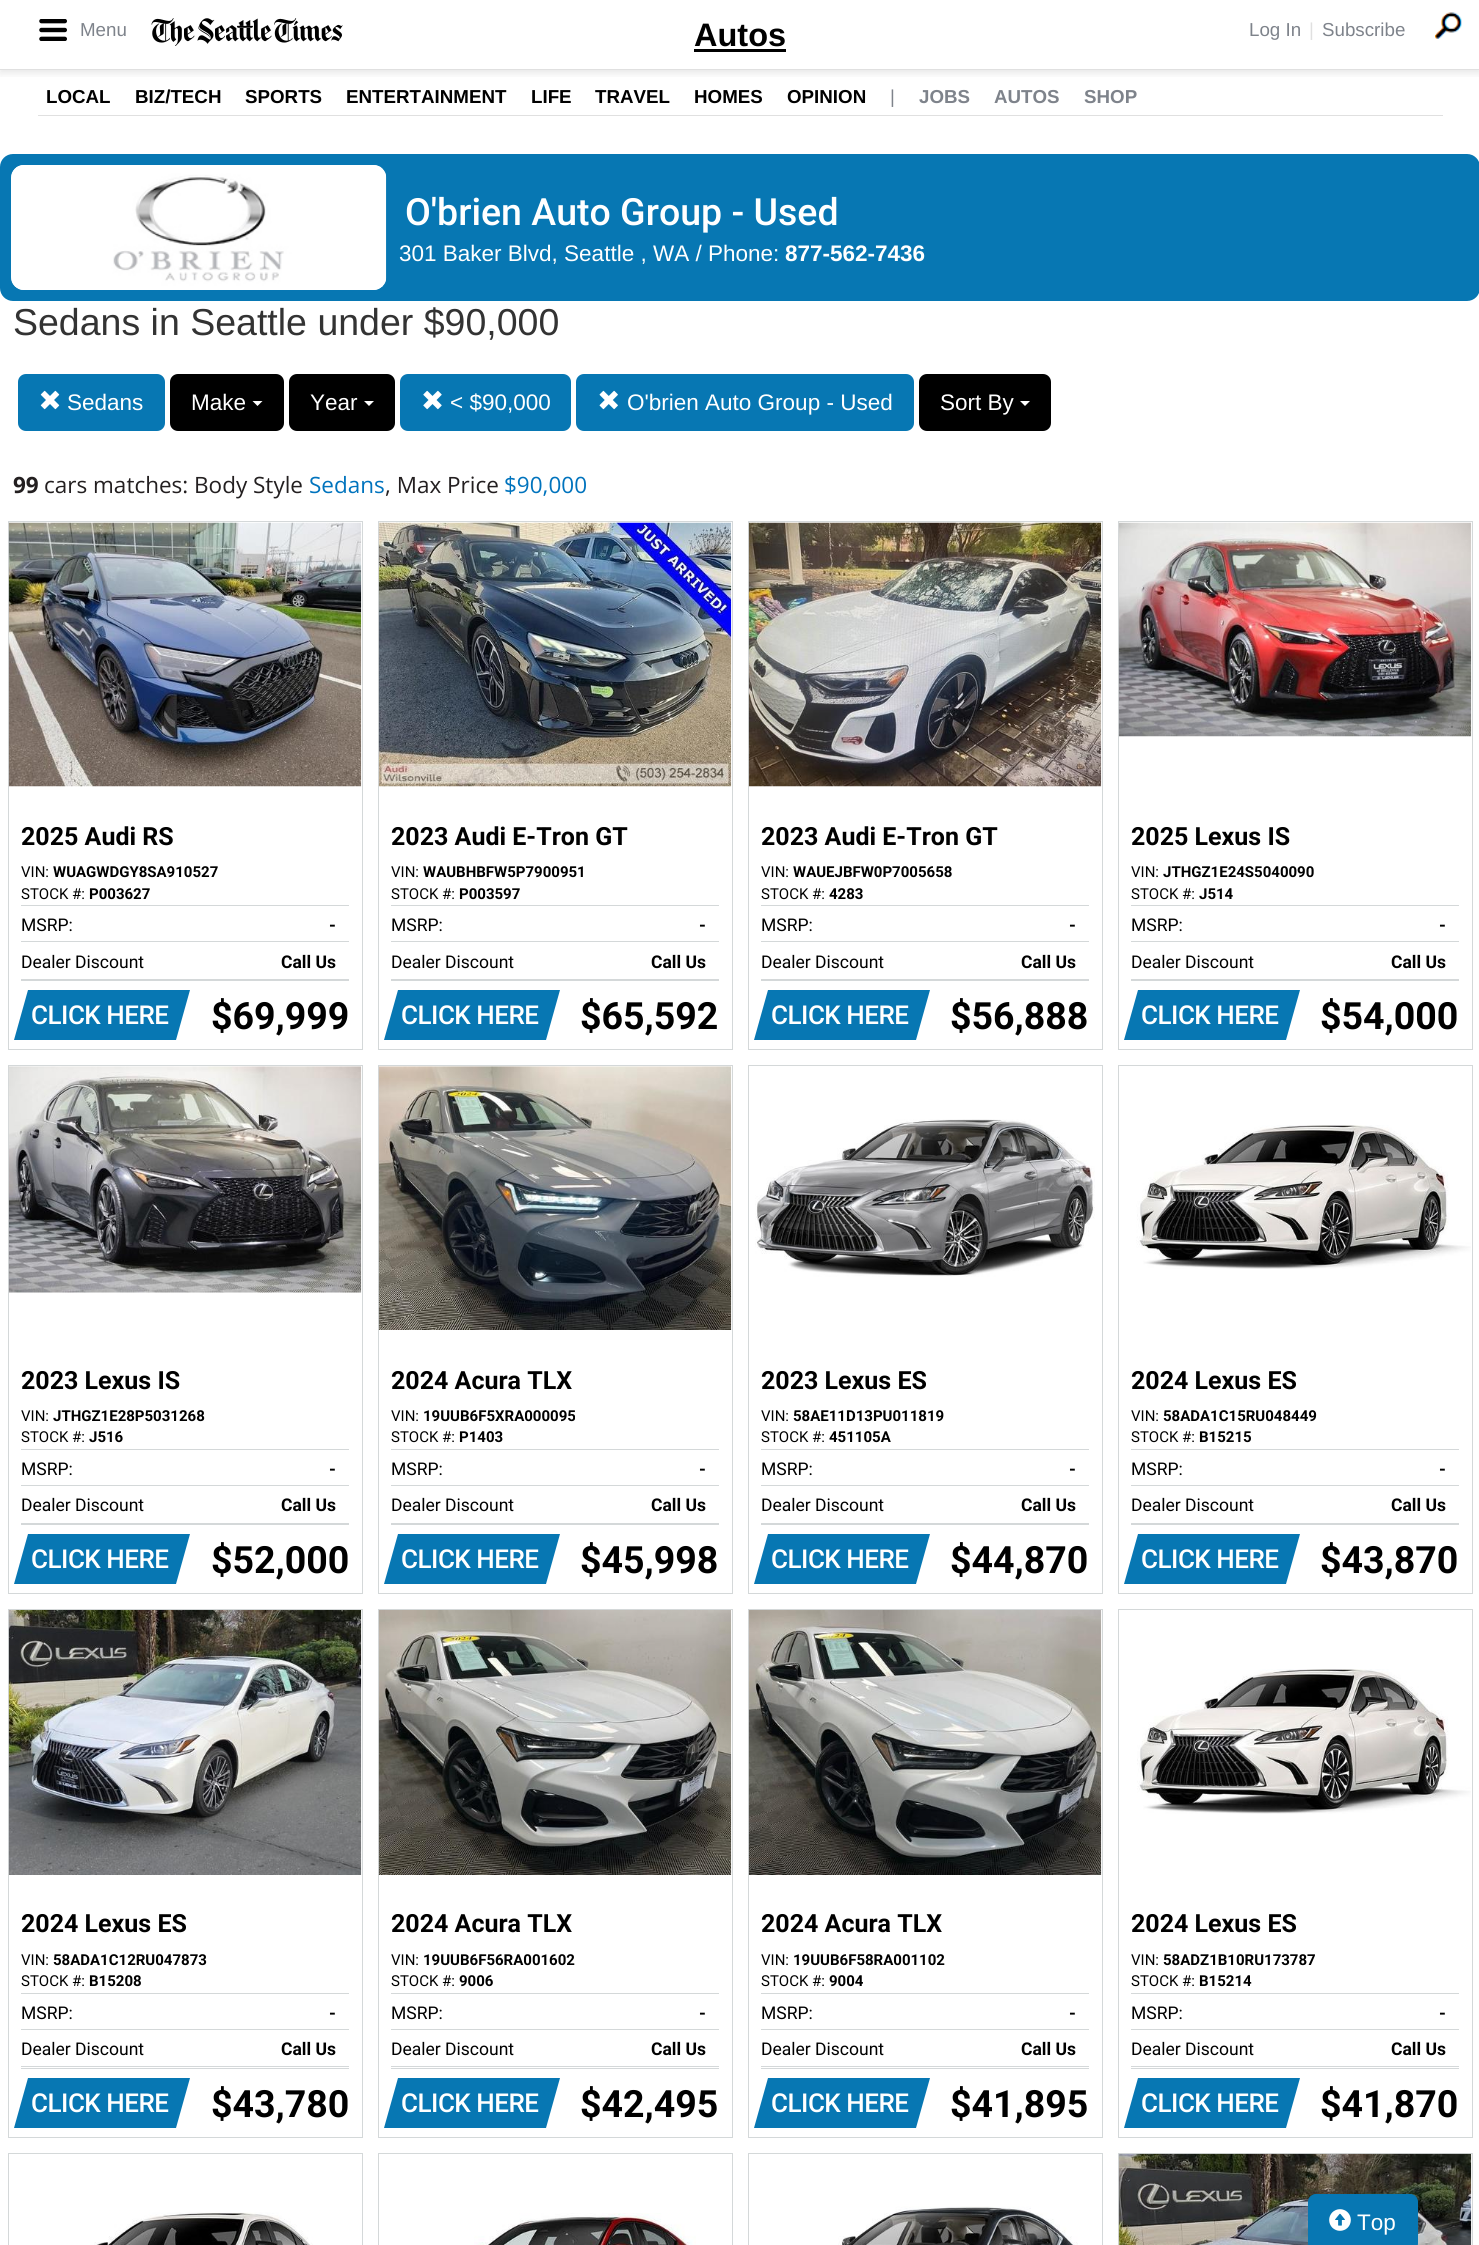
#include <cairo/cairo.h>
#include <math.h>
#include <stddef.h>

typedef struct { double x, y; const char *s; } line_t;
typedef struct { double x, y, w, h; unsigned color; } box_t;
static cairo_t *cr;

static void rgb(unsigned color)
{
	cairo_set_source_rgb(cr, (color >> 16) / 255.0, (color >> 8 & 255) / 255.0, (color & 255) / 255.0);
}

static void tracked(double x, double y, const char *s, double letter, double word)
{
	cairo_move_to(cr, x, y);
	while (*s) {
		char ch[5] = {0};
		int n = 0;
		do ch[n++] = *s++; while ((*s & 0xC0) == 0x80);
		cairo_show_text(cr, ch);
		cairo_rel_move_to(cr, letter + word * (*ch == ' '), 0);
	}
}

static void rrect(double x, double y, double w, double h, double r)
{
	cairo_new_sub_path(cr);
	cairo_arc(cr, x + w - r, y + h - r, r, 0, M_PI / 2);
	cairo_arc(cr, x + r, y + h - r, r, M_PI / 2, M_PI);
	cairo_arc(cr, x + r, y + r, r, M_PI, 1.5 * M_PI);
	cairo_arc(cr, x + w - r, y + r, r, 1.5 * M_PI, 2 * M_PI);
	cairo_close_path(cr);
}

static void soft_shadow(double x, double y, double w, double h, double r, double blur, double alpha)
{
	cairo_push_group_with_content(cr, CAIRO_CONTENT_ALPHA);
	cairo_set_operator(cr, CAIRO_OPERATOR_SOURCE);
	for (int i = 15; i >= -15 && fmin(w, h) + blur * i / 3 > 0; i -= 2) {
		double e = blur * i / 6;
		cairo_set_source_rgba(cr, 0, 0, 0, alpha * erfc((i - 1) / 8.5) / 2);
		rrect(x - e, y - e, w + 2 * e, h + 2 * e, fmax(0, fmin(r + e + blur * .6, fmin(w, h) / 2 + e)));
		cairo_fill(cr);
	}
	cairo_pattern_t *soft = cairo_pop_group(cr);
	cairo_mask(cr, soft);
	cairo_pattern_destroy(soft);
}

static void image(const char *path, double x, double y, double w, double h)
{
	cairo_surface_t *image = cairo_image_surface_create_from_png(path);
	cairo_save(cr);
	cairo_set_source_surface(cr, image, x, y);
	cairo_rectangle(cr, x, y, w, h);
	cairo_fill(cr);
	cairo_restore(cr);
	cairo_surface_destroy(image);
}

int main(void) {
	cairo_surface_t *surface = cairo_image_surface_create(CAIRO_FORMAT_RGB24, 1479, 2245);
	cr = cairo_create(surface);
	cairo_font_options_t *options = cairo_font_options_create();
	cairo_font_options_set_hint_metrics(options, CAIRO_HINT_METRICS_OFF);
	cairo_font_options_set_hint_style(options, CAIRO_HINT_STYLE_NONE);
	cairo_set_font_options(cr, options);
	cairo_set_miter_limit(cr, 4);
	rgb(0xffffff);
	cairo_paint(cr);
	cairo_save(cr);
	cairo_rectangle(cr, 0, 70, 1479, 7);
	cairo_clip(cr);
	rgb(0x000000);
	soft_shadow(0, 3, 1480, 70, 0, 4.5, 0.1);
	cairo_restore(cr);
	rgb(0xe0e0e0);
	cairo_rectangle(cr, 0, 69, 1479, 1);
	cairo_fill(cr);
	image("img/1.png", 39, 19, 28, 22);
	image("img/2.png", 151, 18, 192, 28);
	image("img/3.png", 1435, 12, 27, 27);
	rgb(0x000000);
	cairo_rectangle(cr, 694, 49, 92, 3);
	cairo_fill(cr);
	rgb(0xe0e0e0);
	cairo_rectangle(cr, 38, 115, 1405, 1);
	cairo_fill(cr);
	rgb(0x0777b3);
	rrect(0, 154, 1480, 147, 13);
	cairo_fill(cr);
	rgb(0xffffff);
	rrect(11, 165, 375, 125, 13);
	cairo_fill(cr);
	image("img/4.png", 11, 165, 376, 125);
	rgb(0x0777b3);
	rrect(18, 374, 147, 57, 8);
	cairo_fill(cr);
	image("img/5.png", 40, 390, 20, 20);
	rgb(0x000000);
	rrect(170, 374, 114, 57, 8);
	cairo_fill(cr);
	rgb(0xffffff);
	cairo_new_path(cr);
	cairo_move_to(cr, 252.5, 401);
	cairo_line_to(cr, 262.5, 401);
	cairo_line_to(cr, 257.5, 406);
	cairo_close_path(cr);
	cairo_fill(cr);
	rgb(0x000000);
	rrect(289, 374, 106, 57, 8);
	cairo_fill(cr);
	rgb(0xffffff);
	cairo_new_path(cr);
	cairo_move_to(cr, 364, 401);
	cairo_line_to(cr, 374, 401);
	cairo_line_to(cr, 369, 406);
	cairo_close_path(cr);
	cairo_fill(cr);
	rgb(0x0777b3);
	rrect(400, 374, 171, 57, 8);
	cairo_fill(cr);
	image("img/6.png", 423, 390, 19, 20);
	rrect(576, 374, 338, 57, 8);
	cairo_fill(cr);
	image("img/7.png", 599, 390, 19, 20);
	rgb(0x000000);
	rrect(919, 374, 132, 57, 8);
	cairo_fill(cr);
	rgb(0xffffff);
	cairo_new_path(cr);
	cairo_move_to(cr, 1020, 401);
	cairo_line_to(cr, 1030, 401);
	cairo_line_to(cr, 1025, 406);
	cairo_close_path(cr);
	cairo_fill(cr);
	cairo_rectangle(cr, 8.5, 521.5, 354, 528);
	rgb(0xd4d8d9);
	cairo_set_line_width(cr, 1);
	cairo_stroke(cr);
	image("img/8.png", 8, 522, 354, 265);
	{
		static const box_t items[] = {
			{21, 905, 328, 1, 0xd4d8d9},
			{21, 941, 328, 1, 0xd4d8d9},
			{21, 979, 328, 2, 0xd4d8d9},
		};
		for (size_t i = 0; i < sizeof items / sizeof *items; i++) {
			rgb(items[i].color);
			cairo_rectangle(cr, items[i].x, items[i].y, items[i].w, items[i].h);
			cairo_fill(cr);
		}
	}
	rgb(0x0777b3);
	cairo_new_path(cr);
	cairo_move_to(cr, 28, 990);
	cairo_line_to(cr, 190, 990);
	cairo_line_to(cr, 176, 1040);
	cairo_line_to(cr, 14, 1040);
	cairo_close_path(cr);
	cairo_fill(cr);
	cairo_rectangle(cr, 378.5, 521.5, 354, 528);
	rgb(0xd4d8d9);
	cairo_stroke(cr);
	image("img/9.png", 378, 522, 354, 265);
	{
		static const box_t items[] = {
			{391, 905, 328, 1, 0xd4d8d9},
			{391, 941, 328, 1, 0xd4d8d9},
			{391, 979, 328, 2, 0xd4d8d9},
		};
		for (size_t i = 0; i < sizeof items / sizeof *items; i++) {
			rgb(items[i].color);
			cairo_rectangle(cr, items[i].x, items[i].y, items[i].w, items[i].h);
			cairo_fill(cr);
		}
	}
	rgb(0x0777b3);
	cairo_new_path(cr);
	cairo_move_to(cr, 398, 990);
	cairo_line_to(cr, 560, 990);
	cairo_line_to(cr, 546, 1040);
	cairo_line_to(cr, 384, 1040);
	cairo_close_path(cr);
	cairo_fill(cr);
	cairo_rectangle(cr, 748.5, 521.5, 354, 528);
	rgb(0xd4d8d9);
	cairo_stroke(cr);
	image("img/10.png", 748, 522, 354, 265);
	{
		static const box_t items[] = {
			{761, 905, 328, 1, 0xd4d8d9},
			{761, 941, 328, 1, 0xd4d8d9},
			{761, 979, 328, 2, 0xd4d8d9},
		};
		for (size_t i = 0; i < sizeof items / sizeof *items; i++) {
			rgb(items[i].color);
			cairo_rectangle(cr, items[i].x, items[i].y, items[i].w, items[i].h);
			cairo_fill(cr);
		}
	}
	rgb(0x0777b3);
	cairo_new_path(cr);
	cairo_move_to(cr, 768, 990);
	cairo_line_to(cr, 930, 990);
	cairo_line_to(cr, 916, 1040);
	cairo_line_to(cr, 754, 1040);
	cairo_close_path(cr);
	cairo_fill(cr);
	cairo_rectangle(cr, 1118.5, 521.5, 354, 528);
	rgb(0xd4d8d9);
	cairo_stroke(cr);
	image("img/11.png", 1118, 522, 354, 215);
	{
		static const box_t items[] = {
			{1131, 905, 328, 1, 0xd4d8d9},
			{1131, 941, 328, 1, 0xd4d8d9},
			{1131, 979, 328, 2, 0xd4d8d9},
		};
		for (size_t i = 0; i < sizeof items / sizeof *items; i++) {
			rgb(items[i].color);
			cairo_rectangle(cr, items[i].x, items[i].y, items[i].w, items[i].h);
			cairo_fill(cr);
		}
	}
	rgb(0x0777b3);
	cairo_new_path(cr);
	cairo_move_to(cr, 1138, 990);
	cairo_line_to(cr, 1300, 990);
	cairo_line_to(cr, 1286, 1040);
	cairo_line_to(cr, 1124, 1040);
	cairo_close_path(cr);
	cairo_fill(cr);
	cairo_rectangle(cr, 8.5, 1065.5, 354, 528);
	rgb(0xd4d8d9);
	cairo_stroke(cr);
	image("img/12.png", 8, 1066, 354, 227);
	{
		static const box_t items[] = {
			{21, 1449, 328, 1, 0xd4d8d9},
			{21, 1485, 328, 1, 0xd4d8d9},
			{21, 1523, 328, 2, 0xd4d8d9},
		};
		for (size_t i = 0; i < sizeof items / sizeof *items; i++) {
			rgb(items[i].color);
			cairo_rectangle(cr, items[i].x, items[i].y, items[i].w, items[i].h);
			cairo_fill(cr);
		}
	}
	rgb(0x0777b3);
	cairo_new_path(cr);
	cairo_move_to(cr, 28, 1534);
	cairo_line_to(cr, 190, 1534);
	cairo_line_to(cr, 176, 1584);
	cairo_line_to(cr, 14, 1584);
	cairo_close_path(cr);
	cairo_fill(cr);
	cairo_rectangle(cr, 378.5, 1065.5, 354, 528);
	rgb(0xd4d8d9);
	cairo_stroke(cr);
	image("img/13.png", 378, 1066, 354, 264);
	{
		static const box_t items[] = {
			{391, 1449, 328, 1, 0xd4d8d9},
			{391, 1485, 328, 1, 0xd4d8d9},
			{391, 1523, 328, 2, 0xd4d8d9},
		};
		for (size_t i = 0; i < sizeof items / sizeof *items; i++) {
			rgb(items[i].color);
			cairo_rectangle(cr, items[i].x, items[i].y, items[i].w, items[i].h);
			cairo_fill(cr);
		}
	}
	rgb(0x0777b3);
	cairo_new_path(cr);
	cairo_move_to(cr, 398, 1534);
	cairo_line_to(cr, 560, 1534);
	cairo_line_to(cr, 546, 1584);
	cairo_line_to(cr, 384, 1584);
	cairo_close_path(cr);
	cairo_fill(cr);
	cairo_rectangle(cr, 748.5, 1065.5, 354, 528);
	rgb(0xd4d8d9);
	cairo_stroke(cr);
	image("img/14.png", 755, 1119, 340, 158);
	{
		static const box_t items[] = {
			{761, 1449, 328, 1, 0xd4d8d9},
			{761, 1485, 328, 1, 0xd4d8d9},
			{761, 1523, 328, 2, 0xd4d8d9},
		};
		for (size_t i = 0; i < sizeof items / sizeof *items; i++) {
			rgb(items[i].color);
			cairo_rectangle(cr, items[i].x, items[i].y, items[i].w, items[i].h);
			cairo_fill(cr);
		}
	}
	rgb(0x0777b3);
	cairo_new_path(cr);
	cairo_move_to(cr, 768, 1534);
	cairo_line_to(cr, 930, 1534);
	cairo_line_to(cr, 916, 1584);
	cairo_line_to(cr, 754, 1584);
	cairo_close_path(cr);
	cairo_fill(cr);
	cairo_rectangle(cr, 1118.5, 1065.5, 354, 528);
	rgb(0xd4d8d9);
	cairo_stroke(cr);
	image("img/15.png", 1136, 1125, 335, 144);
	{
		static const box_t items[] = {
			{1131, 1449, 328, 1, 0xd4d8d9},
			{1131, 1485, 328, 1, 0xd4d8d9},
			{1131, 1523, 328, 2, 0xd4d8d9},
		};
		for (size_t i = 0; i < sizeof items / sizeof *items; i++) {
			rgb(items[i].color);
			cairo_rectangle(cr, items[i].x, items[i].y, items[i].w, items[i].h);
			cairo_fill(cr);
		}
	}
	rgb(0x0777b3);
	cairo_new_path(cr);
	cairo_move_to(cr, 1138, 1534);
	cairo_line_to(cr, 1300, 1534);
	cairo_line_to(cr, 1286, 1584);
	cairo_line_to(cr, 1124, 1584);
	cairo_close_path(cr);
	cairo_fill(cr);
	cairo_rectangle(cr, 8.5, 1609.5, 354, 528);
	rgb(0xd4d8d9);
	cairo_stroke(cr);
	image("img/16.png", 8, 1610, 354, 265);
	{
		static const box_t items[] = {
			{21, 1993, 328, 1, 0xd4d8d9},
			{21, 2029, 328, 1, 0xd4d8d9},
			{21, 2066, 328, 1, 0xd4d8d9},
			{21, 2068, 328, 1, 0xd4d8d9},
		};
		for (size_t i = 0; i < sizeof items / sizeof *items; i++) {
			rgb(items[i].color);
			cairo_rectangle(cr, items[i].x, items[i].y, items[i].w, items[i].h);
			cairo_fill(cr);
		}
	}
	rgb(0x0777b3);
	cairo_new_path(cr);
	cairo_move_to(cr, 28, 2078);
	cairo_line_to(cr, 190, 2078);
	cairo_line_to(cr, 176, 2128);
	cairo_line_to(cr, 14, 2128);
	cairo_close_path(cr);
	cairo_fill(cr);
	cairo_rectangle(cr, 378.5, 1609.5, 354, 528);
	rgb(0xd4d8d9);
	cairo_stroke(cr);
	image("img/17.png", 378, 1610, 354, 265);
	{
		static const box_t items[] = {
			{391, 1993, 328, 1, 0xd4d8d9},
			{391, 2029, 328, 1, 0xd4d8d9},
			{391, 2066, 328, 1, 0xd4d8d9},
			{391, 2068, 328, 1, 0xd4d8d9},
		};
		for (size_t i = 0; i < sizeof items / sizeof *items; i++) {
			rgb(items[i].color);
			cairo_rectangle(cr, items[i].x, items[i].y, items[i].w, items[i].h);
			cairo_fill(cr);
		}
	}
	rgb(0x0777b3);
	cairo_new_path(cr);
	cairo_move_to(cr, 398, 2078);
	cairo_line_to(cr, 560, 2078);
	cairo_line_to(cr, 546, 2128);
	cairo_line_to(cr, 384, 2128);
	cairo_close_path(cr);
	cairo_fill(cr);
	cairo_rectangle(cr, 748.5, 1609.5, 354, 528);
	rgb(0xd4d8d9);
	cairo_stroke(cr);
	image("img/18.png", 748, 1610, 354, 265);
	{
		static const box_t items[] = {
			{761, 1993, 328, 1, 0xd4d8d9},
			{761, 2029, 328, 1, 0xd4d8d9},
			{761, 2066, 328, 1, 0xd4d8d9},
			{761, 2068, 328, 1, 0xd4d8d9},
		};
		for (size_t i = 0; i < sizeof items / sizeof *items; i++) {
			rgb(items[i].color);
			cairo_rectangle(cr, items[i].x, items[i].y, items[i].w, items[i].h);
			cairo_fill(cr);
		}
	}
	rgb(0x0777b3);
	cairo_new_path(cr);
	cairo_move_to(cr, 768, 2078);
	cairo_line_to(cr, 930, 2078);
	cairo_line_to(cr, 916, 2128);
	cairo_line_to(cr, 754, 2128);
	cairo_close_path(cr);
	cairo_fill(cr);
	cairo_rectangle(cr, 1118.5, 1609.5, 354, 528);
	rgb(0xd4d8d9);
	cairo_stroke(cr);
	image("img/19.png", 1137, 1669, 334, 145);
	{
		static const box_t items[] = {
			{1131, 1993, 328, 1, 0xd4d8d9},
			{1131, 2029, 328, 1, 0xd4d8d9},
			{1131, 2066, 328, 1, 0xd4d8d9},
			{1131, 2068, 328, 1, 0xd4d8d9},
		};
		for (size_t i = 0; i < sizeof items / sizeof *items; i++) {
			rgb(items[i].color);
			cairo_rectangle(cr, items[i].x, items[i].y, items[i].w, items[i].h);
			cairo_fill(cr);
		}
	}
	rgb(0x0777b3);
	cairo_new_path(cr);
	cairo_move_to(cr, 1138, 2078);
	cairo_line_to(cr, 1300, 2078);
	cairo_line_to(cr, 1286, 2128);
	cairo_line_to(cr, 1124, 2128);
	cairo_close_path(cr);
	cairo_fill(cr);
	cairo_rectangle(cr, 8.5, 2153.5, 354, 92);
	rgb(0xd4d8d9);
	cairo_stroke(cr);
	image("img/20.png", 94, 2212, 219, 33);
	cairo_rectangle(cr, 378.5, 2153.5, 354, 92);
	cairo_stroke(cr);
	image("img/21.png", 474, 2213, 222, 32);
	cairo_rectangle(cr, 748.5, 2153.5, 354, 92);
	cairo_stroke(cr);
	image("img/22.png", 838, 2206, 240, 39);
	cairo_rectangle(cr, 1118.5, 2153.5, 354, 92);
	cairo_stroke(cr);
	image("img/23.png", 1118, 2153, 354, 92);
	rgb(0x0777b3);
	rrect(1308.5, 2194.5, 109, 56, 7.5);
	cairo_fill_preserve(cr);
	cairo_stroke(cr);
	image("img/24.png", 1329, 2209, 22, 22);
	cairo_select_font_face(cr, "Liberation Sans", CAIRO_FONT_SLANT_NORMAL, CAIRO_FONT_WEIGHT_NORMAL);
	cairo_set_font_size(cr, 18.75);
	rgb(0x7e838b);
	cairo_move_to(cr, 80, 36);
	cairo_show_text(cr, "Menu");
	cairo_move_to(cr, 1249, 36);
	cairo_show_text(cr, "Log In");
	rgb(0xe0e0e0);
	cairo_move_to(cr, 1309, 36);
	cairo_show_text(cr, "|");
	rgb(0x7e838b);
	cairo_move_to(cr, 1322, 36);
	cairo_show_text(cr, "Subscribe");
	cairo_select_font_face(cr, "Liberation Sans", CAIRO_FONT_SLANT_NORMAL, CAIRO_FONT_WEIGHT_BOLD);
	cairo_set_font_size(cr, 32.5);
	rgb(0x000000);
	cairo_move_to(cr, 694, 46);
	cairo_show_text(cr, "Autos");
	cairo_set_font_size(cr, 18.75);
	{
		static const line_t items[] = {
			{46, 103, "LOCAL"},
			{135, 103, "BIZ/TECH"},
			{245, 103, "SPORTS"},
			{346, 103, "ENTERTAINMENT"},
			{531, 103, "LIFE"},
			{595, 103, "TRAVEL"},
			{694, 103, "HOMES"},
			{787, 103, "OPINION"},
		};
		for (size_t i = 0; i < sizeof items / sizeof *items; i++) {
			cairo_move_to(cr, items[i].x, items[i].y);
			cairo_show_text(cr, items[i].s);
		}
	}
	cairo_select_font_face(cr, "Liberation Sans", CAIRO_FONT_SLANT_NORMAL, CAIRO_FONT_WEIGHT_NORMAL);
	rgb(0x7e838b);
	cairo_move_to(cr, 890, 103);
	cairo_show_text(cr, "|");
	cairo_select_font_face(cr, "Liberation Sans", CAIRO_FONT_SLANT_NORMAL, CAIRO_FONT_WEIGHT_BOLD);
	{
		static const line_t items[] = {
			{919, 103, "JOBS"},
			{994, 103, "AUTOS"},
			{1084, 103, "SHOP"},
		};
		for (size_t i = 0; i < sizeof items / sizeof *items; i++) {
			cairo_move_to(cr, items[i].x, items[i].y);
			cairo_show_text(cr, items[i].s);
		}
	}
	cairo_select_font_face(cr, "Roboto Medium", CAIRO_FONT_SLANT_NORMAL, CAIRO_FONT_WEIGHT_NORMAL);
	cairo_set_font_size(cr, 37.5);
	rgb(0xffffff);
	cairo_move_to(cr, 405, 225);
	cairo_show_text(cr, "O'brien Auto Group - Used");
	cairo_select_font_face(cr, "Liberation Sans", CAIRO_FONT_SLANT_NORMAL, CAIRO_FONT_WEIGHT_NORMAL);
	cairo_set_font_size(cr, 22.5);
	cairo_move_to(cr, 399, 261);
	cairo_show_text(cr, "301 Baker Blvd, Seattle , WA / Phone:");
	cairo_select_font_face(cr, "Liberation Sans", CAIRO_FONT_SLANT_NORMAL, CAIRO_FONT_WEIGHT_BOLD);
	cairo_move_to(cr, 785, 261);
	cairo_show_text(cr, "877-562-7436");
	cairo_select_font_face(cr, "Liberation Sans", CAIRO_FONT_SLANT_NORMAL, CAIRO_FONT_WEIGHT_NORMAL);
	cairo_set_font_size(cr, 37.5);
	rgb(0x333333);
	cairo_move_to(cr, 13, 335);
	cairo_show_text(cr, "Sedans in Seattle under $90,000");
	cairo_set_font_size(cr, 22.5);
	rgb(0xffffff);
	{
		static const line_t items[] = {
			{67, 410, "Sedans"},
			{191, 410, "Make"},
			{310, 410, "Year"},
			{450, 410, "< $90,000"},
			{627, 410, "O'brien Auto Group - Used"},
			{940, 410, "Sort By"},
		};
		for (size_t i = 0; i < sizeof items / sizeof *items; i++) {
			cairo_move_to(cr, items[i].x, items[i].y);
			cairo_show_text(cr, items[i].s);
		}
	}
	cairo_select_font_face(cr, "Open Sans", CAIRO_FONT_SLANT_NORMAL, CAIRO_FONT_WEIGHT_BOLD);
	rgb(0x231f20);
	cairo_move_to(cr, 13, 493);
	cairo_show_text(cr, "99");
	cairo_select_font_face(cr, "Open Sans", CAIRO_FONT_SLANT_NORMAL, CAIRO_FONT_WEIGHT_NORMAL);
	cairo_move_to(cr, 44, 493);
	cairo_show_text(cr, "cars matches: Body Style");
	rgb(0x0073bd);
	cairo_move_to(cr, 309, 493);
	cairo_show_text(cr, "Sedans");
	rgb(0x231f20);
	cairo_move_to(cr, 385, 493);
	cairo_show_text(cr, ", Max Price");
	rgb(0x0073bd);
	cairo_move_to(cr, 504, 493);
	cairo_show_text(cr, "$90,000");
	cairo_select_font_face(cr, "Roboto", CAIRO_FONT_SLANT_NORMAL, CAIRO_FONT_WEIGHT_BOLD);
	cairo_set_font_size(cr, 25);
	rgb(0x000000);
	cairo_move_to(cr, 21, 845);
	cairo_show_text(cr, "2025 Audi RS");
	cairo_select_font_face(cr, "Roboto", CAIRO_FONT_SLANT_NORMAL, CAIRO_FONT_WEIGHT_NORMAL);
	cairo_set_font_size(cr, 15);
	cairo_move_to(cr, 21, 877);
	cairo_show_text(cr, "VIN:");
	cairo_select_font_face(cr, "Roboto", CAIRO_FONT_SLANT_NORMAL, CAIRO_FONT_WEIGHT_BOLD);
	cairo_move_to(cr, 53, 877);
	cairo_show_text(cr, "WUAGWDGY8SA910527");
	cairo_select_font_face(cr, "Roboto", CAIRO_FONT_SLANT_NORMAL, CAIRO_FONT_WEIGHT_NORMAL);
	cairo_move_to(cr, 21, 899);
	cairo_show_text(cr, "STOCK #:");
	cairo_select_font_face(cr, "Roboto", CAIRO_FONT_SLANT_NORMAL, CAIRO_FONT_WEIGHT_BOLD);
	cairo_move_to(cr, 89, 899);
	cairo_show_text(cr, "P003627");
	cairo_select_font_face(cr, "Roboto", CAIRO_FONT_SLANT_NORMAL, CAIRO_FONT_WEIGHT_NORMAL);
	cairo_set_font_size(cr, 17.5);
	cairo_move_to(cr, 21, 931);
	cairo_show_text(cr, "MSRP:");
	cairo_select_font_face(cr, "Roboto", CAIRO_FONT_SLANT_NORMAL, CAIRO_FONT_WEIGHT_BOLD);
	cairo_move_to(cr, 329, 931);
	cairo_show_text(cr, "-");
	cairo_select_font_face(cr, "Roboto", CAIRO_FONT_SLANT_NORMAL, CAIRO_FONT_WEIGHT_NORMAL);
	cairo_move_to(cr, 21, 968);
	cairo_show_text(cr, "Dealer Discount");
	cairo_select_font_face(cr, "Roboto", CAIRO_FONT_SLANT_NORMAL, CAIRO_FONT_WEIGHT_BOLD);
	cairo_move_to(cr, 281, 968);
	cairo_show_text(cr, "Call Us");
	cairo_select_font_face(cr, "Roboto Medium", CAIRO_FONT_SLANT_NORMAL, CAIRO_FONT_WEIGHT_NORMAL);
	cairo_set_font_size(cr, 26);
	rgb(0xffffff);
	tracked(31, 1024, "CLICK HERE", -0.5, 0);
	cairo_select_font_face(cr, "Roboto", CAIRO_FONT_SLANT_NORMAL, CAIRO_FONT_WEIGHT_BOLD);
	cairo_set_font_size(cr, 37.5);
	rgb(0x000000);
	cairo_move_to(cr, 211, 1029);
	cairo_show_text(cr, "$69,999");
	cairo_set_font_size(cr, 25);
	cairo_move_to(cr, 391, 845);
	cairo_show_text(cr, "2023 Audi E-Tron GT");
	cairo_select_font_face(cr, "Roboto", CAIRO_FONT_SLANT_NORMAL, CAIRO_FONT_WEIGHT_NORMAL);
	cairo_set_font_size(cr, 15);
	cairo_move_to(cr, 391, 877);
	cairo_show_text(cr, "VIN:");
	cairo_select_font_face(cr, "Roboto", CAIRO_FONT_SLANT_NORMAL, CAIRO_FONT_WEIGHT_BOLD);
	cairo_move_to(cr, 423, 877);
	cairo_show_text(cr, "WAUBHBFW5P7900951");
	cairo_select_font_face(cr, "Roboto", CAIRO_FONT_SLANT_NORMAL, CAIRO_FONT_WEIGHT_NORMAL);
	cairo_move_to(cr, 391, 899);
	cairo_show_text(cr, "STOCK #:");
	cairo_select_font_face(cr, "Roboto", CAIRO_FONT_SLANT_NORMAL, CAIRO_FONT_WEIGHT_BOLD);
	cairo_move_to(cr, 459, 899);
	cairo_show_text(cr, "P003597");
	cairo_select_font_face(cr, "Roboto", CAIRO_FONT_SLANT_NORMAL, CAIRO_FONT_WEIGHT_NORMAL);
	cairo_set_font_size(cr, 17.5);
	cairo_move_to(cr, 391, 931);
	cairo_show_text(cr, "MSRP:");
	cairo_select_font_face(cr, "Roboto", CAIRO_FONT_SLANT_NORMAL, CAIRO_FONT_WEIGHT_BOLD);
	cairo_move_to(cr, 699, 931);
	cairo_show_text(cr, "-");
	cairo_select_font_face(cr, "Roboto", CAIRO_FONT_SLANT_NORMAL, CAIRO_FONT_WEIGHT_NORMAL);
	cairo_move_to(cr, 391, 968);
	cairo_show_text(cr, "Dealer Discount");
	cairo_select_font_face(cr, "Roboto", CAIRO_FONT_SLANT_NORMAL, CAIRO_FONT_WEIGHT_BOLD);
	cairo_move_to(cr, 651, 968);
	cairo_show_text(cr, "Call Us");
	cairo_select_font_face(cr, "Roboto Medium", CAIRO_FONT_SLANT_NORMAL, CAIRO_FONT_WEIGHT_NORMAL);
	cairo_set_font_size(cr, 26);
	rgb(0xffffff);
	tracked(401, 1024, "CLICK HERE", -0.5, 0);
	cairo_select_font_face(cr, "Roboto", CAIRO_FONT_SLANT_NORMAL, CAIRO_FONT_WEIGHT_BOLD);
	cairo_set_font_size(cr, 37.5);
	rgb(0x000000);
	cairo_move_to(cr, 580, 1029);
	cairo_show_text(cr, "$65,592");
	cairo_set_font_size(cr, 25);
	cairo_move_to(cr, 761, 845);
	cairo_show_text(cr, "2023 Audi E-Tron GT");
	cairo_select_font_face(cr, "Roboto", CAIRO_FONT_SLANT_NORMAL, CAIRO_FONT_WEIGHT_NORMAL);
	cairo_set_font_size(cr, 15);
	cairo_move_to(cr, 761, 877);
	cairo_show_text(cr, "VIN:");
	cairo_select_font_face(cr, "Roboto", CAIRO_FONT_SLANT_NORMAL, CAIRO_FONT_WEIGHT_BOLD);
	cairo_move_to(cr, 793, 877);
	cairo_show_text(cr, "WAUEJBFW0P7005658");
	cairo_select_font_face(cr, "Roboto", CAIRO_FONT_SLANT_NORMAL, CAIRO_FONT_WEIGHT_NORMAL);
	cairo_move_to(cr, 761, 899);
	cairo_show_text(cr, "STOCK #:");
	cairo_select_font_face(cr, "Roboto", CAIRO_FONT_SLANT_NORMAL, CAIRO_FONT_WEIGHT_BOLD);
	cairo_move_to(cr, 829, 899);
	cairo_show_text(cr, "4283");
	cairo_select_font_face(cr, "Roboto", CAIRO_FONT_SLANT_NORMAL, CAIRO_FONT_WEIGHT_NORMAL);
	cairo_set_font_size(cr, 17.5);
	cairo_move_to(cr, 761, 931);
	cairo_show_text(cr, "MSRP:");
	cairo_select_font_face(cr, "Roboto", CAIRO_FONT_SLANT_NORMAL, CAIRO_FONT_WEIGHT_BOLD);
	cairo_move_to(cr, 1069, 931);
	cairo_show_text(cr, "-");
	cairo_select_font_face(cr, "Roboto", CAIRO_FONT_SLANT_NORMAL, CAIRO_FONT_WEIGHT_NORMAL);
	cairo_move_to(cr, 761, 968);
	cairo_show_text(cr, "Dealer Discount");
	cairo_select_font_face(cr, "Roboto", CAIRO_FONT_SLANT_NORMAL, CAIRO_FONT_WEIGHT_BOLD);
	cairo_move_to(cr, 1021, 968);
	cairo_show_text(cr, "Call Us");
	cairo_select_font_face(cr, "Roboto Medium", CAIRO_FONT_SLANT_NORMAL, CAIRO_FONT_WEIGHT_NORMAL);
	cairo_set_font_size(cr, 26);
	rgb(0xffffff);
	tracked(771, 1024, "CLICK HERE", -0.5, 0);
	cairo_select_font_face(cr, "Roboto", CAIRO_FONT_SLANT_NORMAL, CAIRO_FONT_WEIGHT_BOLD);
	cairo_set_font_size(cr, 37.5);
	rgb(0x000000);
	cairo_move_to(cr, 950, 1029);
	cairo_show_text(cr, "$56,888");
	cairo_set_font_size(cr, 25);
	cairo_move_to(cr, 1131, 845);
	cairo_show_text(cr, "2025 Lexus IS");
	cairo_select_font_face(cr, "Roboto", CAIRO_FONT_SLANT_NORMAL, CAIRO_FONT_WEIGHT_NORMAL);
	cairo_set_font_size(cr, 15);
	cairo_move_to(cr, 1131, 877);
	cairo_show_text(cr, "VIN:");
	cairo_select_font_face(cr, "Roboto", CAIRO_FONT_SLANT_NORMAL, CAIRO_FONT_WEIGHT_BOLD);
	cairo_move_to(cr, 1163, 877);
	cairo_show_text(cr, "JTHGZ1E24S5040090");
	cairo_select_font_face(cr, "Roboto", CAIRO_FONT_SLANT_NORMAL, CAIRO_FONT_WEIGHT_NORMAL);
	cairo_move_to(cr, 1131, 899);
	cairo_show_text(cr, "STOCK #:");
	cairo_select_font_face(cr, "Roboto", CAIRO_FONT_SLANT_NORMAL, CAIRO_FONT_WEIGHT_BOLD);
	cairo_move_to(cr, 1199, 899);
	cairo_show_text(cr, "J514");
	cairo_select_font_face(cr, "Roboto", CAIRO_FONT_SLANT_NORMAL, CAIRO_FONT_WEIGHT_NORMAL);
	cairo_set_font_size(cr, 17.5);
	cairo_move_to(cr, 1131, 931);
	cairo_show_text(cr, "MSRP:");
	cairo_select_font_face(cr, "Roboto", CAIRO_FONT_SLANT_NORMAL, CAIRO_FONT_WEIGHT_BOLD);
	cairo_move_to(cr, 1439, 931);
	cairo_show_text(cr, "-");
	cairo_select_font_face(cr, "Roboto", CAIRO_FONT_SLANT_NORMAL, CAIRO_FONT_WEIGHT_NORMAL);
	cairo_move_to(cr, 1131, 968);
	cairo_show_text(cr, "Dealer Discount");
	cairo_select_font_face(cr, "Roboto", CAIRO_FONT_SLANT_NORMAL, CAIRO_FONT_WEIGHT_BOLD);
	cairo_move_to(cr, 1391, 968);
	cairo_show_text(cr, "Call Us");
	cairo_select_font_face(cr, "Roboto Medium", CAIRO_FONT_SLANT_NORMAL, CAIRO_FONT_WEIGHT_NORMAL);
	cairo_set_font_size(cr, 26);
	rgb(0xffffff);
	tracked(1141, 1024, "CLICK HERE", -0.5, 0);
	cairo_select_font_face(cr, "Roboto", CAIRO_FONT_SLANT_NORMAL, CAIRO_FONT_WEIGHT_BOLD);
	cairo_set_font_size(cr, 37.5);
	rgb(0x000000);
	cairo_move_to(cr, 1320, 1029);
	cairo_show_text(cr, "$54,000");
	cairo_set_font_size(cr, 25);
	cairo_move_to(cr, 21, 1389);
	cairo_show_text(cr, "2023 Lexus IS");
	cairo_select_font_face(cr, "Roboto", CAIRO_FONT_SLANT_NORMAL, CAIRO_FONT_WEIGHT_NORMAL);
	cairo_set_font_size(cr, 15);
	cairo_move_to(cr, 21, 1421);
	cairo_show_text(cr, "VIN:");
	cairo_select_font_face(cr, "Roboto", CAIRO_FONT_SLANT_NORMAL, CAIRO_FONT_WEIGHT_BOLD);
	cairo_move_to(cr, 53, 1421);
	cairo_show_text(cr, "JTHGZ1E28P5031268");
	cairo_select_font_face(cr, "Roboto", CAIRO_FONT_SLANT_NORMAL, CAIRO_FONT_WEIGHT_NORMAL);
	cairo_move_to(cr, 21, 1442);
	cairo_show_text(cr, "STOCK #:");
	cairo_select_font_face(cr, "Roboto", CAIRO_FONT_SLANT_NORMAL, CAIRO_FONT_WEIGHT_BOLD);
	cairo_move_to(cr, 89, 1442);
	cairo_show_text(cr, "J516");
	cairo_select_font_face(cr, "Roboto", CAIRO_FONT_SLANT_NORMAL, CAIRO_FONT_WEIGHT_NORMAL);
	cairo_set_font_size(cr, 17.5);
	cairo_move_to(cr, 21, 1475);
	cairo_show_text(cr, "MSRP:");
	cairo_select_font_face(cr, "Roboto", CAIRO_FONT_SLANT_NORMAL, CAIRO_FONT_WEIGHT_BOLD);
	cairo_move_to(cr, 329, 1475);
	cairo_show_text(cr, "-");
	cairo_select_font_face(cr, "Roboto", CAIRO_FONT_SLANT_NORMAL, CAIRO_FONT_WEIGHT_NORMAL);
	cairo_move_to(cr, 21, 1511);
	cairo_show_text(cr, "Dealer Discount");
	cairo_select_font_face(cr, "Roboto", CAIRO_FONT_SLANT_NORMAL, CAIRO_FONT_WEIGHT_BOLD);
	cairo_move_to(cr, 281, 1511);
	cairo_show_text(cr, "Call Us");
	cairo_select_font_face(cr, "Roboto Medium", CAIRO_FONT_SLANT_NORMAL, CAIRO_FONT_WEIGHT_NORMAL);
	cairo_set_font_size(cr, 26);
	rgb(0xffffff);
	tracked(31, 1568, "CLICK HERE", -0.5, 0);
	cairo_select_font_face(cr, "Roboto", CAIRO_FONT_SLANT_NORMAL, CAIRO_FONT_WEIGHT_BOLD);
	cairo_set_font_size(cr, 37.5);
	rgb(0x000000);
	cairo_move_to(cr, 211, 1573);
	cairo_show_text(cr, "$52,000");
	cairo_set_font_size(cr, 25);
	cairo_move_to(cr, 391, 1389);
	cairo_show_text(cr, "2024 Acura TLX");
	cairo_select_font_face(cr, "Roboto", CAIRO_FONT_SLANT_NORMAL, CAIRO_FONT_WEIGHT_NORMAL);
	cairo_set_font_size(cr, 15);
	cairo_move_to(cr, 391, 1421);
	cairo_show_text(cr, "VIN:");
	cairo_select_font_face(cr, "Roboto", CAIRO_FONT_SLANT_NORMAL, CAIRO_FONT_WEIGHT_BOLD);
	cairo_move_to(cr, 423, 1421);
	cairo_show_text(cr, "19UUB6F5XRA000095");
	cairo_select_font_face(cr, "Roboto", CAIRO_FONT_SLANT_NORMAL, CAIRO_FONT_WEIGHT_NORMAL);
	cairo_move_to(cr, 391, 1442);
	cairo_show_text(cr, "STOCK #:");
	cairo_select_font_face(cr, "Roboto", CAIRO_FONT_SLANT_NORMAL, CAIRO_FONT_WEIGHT_BOLD);
	cairo_move_to(cr, 459, 1442);
	cairo_show_text(cr, "P1403");
	cairo_select_font_face(cr, "Roboto", CAIRO_FONT_SLANT_NORMAL, CAIRO_FONT_WEIGHT_NORMAL);
	cairo_set_font_size(cr, 17.5);
	cairo_move_to(cr, 391, 1475);
	cairo_show_text(cr, "MSRP:");
	cairo_select_font_face(cr, "Roboto", CAIRO_FONT_SLANT_NORMAL, CAIRO_FONT_WEIGHT_BOLD);
	cairo_move_to(cr, 699, 1475);
	cairo_show_text(cr, "-");
	cairo_select_font_face(cr, "Roboto", CAIRO_FONT_SLANT_NORMAL, CAIRO_FONT_WEIGHT_NORMAL);
	cairo_move_to(cr, 391, 1511);
	cairo_show_text(cr, "Dealer Discount");
	cairo_select_font_face(cr, "Roboto", CAIRO_FONT_SLANT_NORMAL, CAIRO_FONT_WEIGHT_BOLD);
	cairo_move_to(cr, 651, 1511);
	cairo_show_text(cr, "Call Us");
	cairo_select_font_face(cr, "Roboto Medium", CAIRO_FONT_SLANT_NORMAL, CAIRO_FONT_WEIGHT_NORMAL);
	cairo_set_font_size(cr, 26);
	rgb(0xffffff);
	tracked(401, 1568, "CLICK HERE", -0.5, 0);
	cairo_select_font_face(cr, "Roboto", CAIRO_FONT_SLANT_NORMAL, CAIRO_FONT_WEIGHT_BOLD);
	cairo_set_font_size(cr, 37.5);
	rgb(0x000000);
	cairo_move_to(cr, 580, 1573);
	cairo_show_text(cr, "$45,998");
	cairo_set_font_size(cr, 25);
	cairo_move_to(cr, 761, 1389);
	cairo_show_text(cr, "2023 Lexus ES");
	cairo_select_font_face(cr, "Roboto", CAIRO_FONT_SLANT_NORMAL, CAIRO_FONT_WEIGHT_NORMAL);
	cairo_set_font_size(cr, 15);
	cairo_move_to(cr, 761, 1421);
	cairo_show_text(cr, "VIN:");
	cairo_select_font_face(cr, "Roboto", CAIRO_FONT_SLANT_NORMAL, CAIRO_FONT_WEIGHT_BOLD);
	cairo_move_to(cr, 793, 1421);
	cairo_show_text(cr, "58AE11D13PU011819");
	cairo_select_font_face(cr, "Roboto", CAIRO_FONT_SLANT_NORMAL, CAIRO_FONT_WEIGHT_NORMAL);
	cairo_move_to(cr, 761, 1442);
	cairo_show_text(cr, "STOCK #:");
	cairo_select_font_face(cr, "Roboto", CAIRO_FONT_SLANT_NORMAL, CAIRO_FONT_WEIGHT_BOLD);
	cairo_move_to(cr, 829, 1442);
	cairo_show_text(cr, "451105A");
	cairo_select_font_face(cr, "Roboto", CAIRO_FONT_SLANT_NORMAL, CAIRO_FONT_WEIGHT_NORMAL);
	cairo_set_font_size(cr, 17.5);
	cairo_move_to(cr, 761, 1475);
	cairo_show_text(cr, "MSRP:");
	cairo_select_font_face(cr, "Roboto", CAIRO_FONT_SLANT_NORMAL, CAIRO_FONT_WEIGHT_BOLD);
	cairo_move_to(cr, 1069, 1475);
	cairo_show_text(cr, "-");
	cairo_select_font_face(cr, "Roboto", CAIRO_FONT_SLANT_NORMAL, CAIRO_FONT_WEIGHT_NORMAL);
	cairo_move_to(cr, 761, 1511);
	cairo_show_text(cr, "Dealer Discount");
	cairo_select_font_face(cr, "Roboto", CAIRO_FONT_SLANT_NORMAL, CAIRO_FONT_WEIGHT_BOLD);
	cairo_move_to(cr, 1021, 1511);
	cairo_show_text(cr, "Call Us");
	cairo_select_font_face(cr, "Roboto Medium", CAIRO_FONT_SLANT_NORMAL, CAIRO_FONT_WEIGHT_NORMAL);
	cairo_set_font_size(cr, 26);
	rgb(0xffffff);
	tracked(771, 1568, "CLICK HERE", -0.5, 0);
	cairo_select_font_face(cr, "Roboto", CAIRO_FONT_SLANT_NORMAL, CAIRO_FONT_WEIGHT_BOLD);
	cairo_set_font_size(cr, 37.5);
	rgb(0x000000);
	cairo_move_to(cr, 950, 1573);
	cairo_show_text(cr, "$44,870");
	cairo_set_font_size(cr, 25);
	cairo_move_to(cr, 1131, 1389);
	cairo_show_text(cr, "2024 Lexus ES");
	cairo_select_font_face(cr, "Roboto", CAIRO_FONT_SLANT_NORMAL, CAIRO_FONT_WEIGHT_NORMAL);
	cairo_set_font_size(cr, 15);
	cairo_move_to(cr, 1131, 1421);
	cairo_show_text(cr, "VIN:");
	cairo_select_font_face(cr, "Roboto", CAIRO_FONT_SLANT_NORMAL, CAIRO_FONT_WEIGHT_BOLD);
	cairo_move_to(cr, 1163, 1421);
	cairo_show_text(cr, "58ADA1C15RU048449");
	cairo_select_font_face(cr, "Roboto", CAIRO_FONT_SLANT_NORMAL, CAIRO_FONT_WEIGHT_NORMAL);
	cairo_move_to(cr, 1131, 1442);
	cairo_show_text(cr, "STOCK #:");
	cairo_select_font_face(cr, "Roboto", CAIRO_FONT_SLANT_NORMAL, CAIRO_FONT_WEIGHT_BOLD);
	cairo_move_to(cr, 1199, 1442);
	cairo_show_text(cr, "B15215");
	cairo_select_font_face(cr, "Roboto", CAIRO_FONT_SLANT_NORMAL, CAIRO_FONT_WEIGHT_NORMAL);
	cairo_set_font_size(cr, 17.5);
	cairo_move_to(cr, 1131, 1475);
	cairo_show_text(cr, "MSRP:");
	cairo_select_font_face(cr, "Roboto", CAIRO_FONT_SLANT_NORMAL, CAIRO_FONT_WEIGHT_BOLD);
	cairo_move_to(cr, 1439, 1475);
	cairo_show_text(cr, "-");
	cairo_select_font_face(cr, "Roboto", CAIRO_FONT_SLANT_NORMAL, CAIRO_FONT_WEIGHT_NORMAL);
	cairo_move_to(cr, 1131, 1511);
	cairo_show_text(cr, "Dealer Discount");
	cairo_select_font_face(cr, "Roboto", CAIRO_FONT_SLANT_NORMAL, CAIRO_FONT_WEIGHT_BOLD);
	cairo_move_to(cr, 1391, 1511);
	cairo_show_text(cr, "Call Us");
	cairo_select_font_face(cr, "Roboto Medium", CAIRO_FONT_SLANT_NORMAL, CAIRO_FONT_WEIGHT_NORMAL);
	cairo_set_font_size(cr, 26);
	rgb(0xffffff);
	tracked(1141, 1568, "CLICK HERE", -0.5, 0);
	cairo_select_font_face(cr, "Roboto", CAIRO_FONT_SLANT_NORMAL, CAIRO_FONT_WEIGHT_BOLD);
	cairo_set_font_size(cr, 37.5);
	rgb(0x000000);
	cairo_move_to(cr, 1320, 1573);
	cairo_show_text(cr, "$43,870");
	cairo_set_font_size(cr, 25);
	cairo_move_to(cr, 21, 1932);
	cairo_show_text(cr, "2024 Lexus ES");
	cairo_select_font_face(cr, "Roboto", CAIRO_FONT_SLANT_NORMAL, CAIRO_FONT_WEIGHT_NORMAL);
	cairo_set_font_size(cr, 15);
	cairo_move_to(cr, 21, 1965);
	cairo_show_text(cr, "VIN:");
	cairo_select_font_face(cr, "Roboto", CAIRO_FONT_SLANT_NORMAL, CAIRO_FONT_WEIGHT_BOLD);
	cairo_move_to(cr, 53, 1965);
	cairo_show_text(cr, "58ADA1C12RU047873");
	cairo_select_font_face(cr, "Roboto", CAIRO_FONT_SLANT_NORMAL, CAIRO_FONT_WEIGHT_NORMAL);
	cairo_move_to(cr, 21, 1986);
	cairo_show_text(cr, "STOCK #:");
	cairo_select_font_face(cr, "Roboto", CAIRO_FONT_SLANT_NORMAL, CAIRO_FONT_WEIGHT_BOLD);
	cairo_move_to(cr, 89, 1986);
	cairo_show_text(cr, "B15208");
	cairo_select_font_face(cr, "Roboto", CAIRO_FONT_SLANT_NORMAL, CAIRO_FONT_WEIGHT_NORMAL);
	cairo_set_font_size(cr, 17.5);
	cairo_move_to(cr, 21, 2019);
	cairo_show_text(cr, "MSRP:");
	cairo_select_font_face(cr, "Roboto", CAIRO_FONT_SLANT_NORMAL, CAIRO_FONT_WEIGHT_BOLD);
	cairo_move_to(cr, 329, 2019);
	cairo_show_text(cr, "-");
	cairo_select_font_face(cr, "Roboto", CAIRO_FONT_SLANT_NORMAL, CAIRO_FONT_WEIGHT_NORMAL);
	cairo_move_to(cr, 21, 2055);
	cairo_show_text(cr, "Dealer Discount");
	cairo_select_font_face(cr, "Roboto", CAIRO_FONT_SLANT_NORMAL, CAIRO_FONT_WEIGHT_BOLD);
	cairo_move_to(cr, 281, 2055);
	cairo_show_text(cr, "Call Us");
	cairo_select_font_face(cr, "Roboto Medium", CAIRO_FONT_SLANT_NORMAL, CAIRO_FONT_WEIGHT_NORMAL);
	cairo_set_font_size(cr, 26);
	rgb(0xffffff);
	tracked(31, 2112, "CLICK HERE", -0.5, 0);
	cairo_select_font_face(cr, "Roboto", CAIRO_FONT_SLANT_NORMAL, CAIRO_FONT_WEIGHT_BOLD);
	cairo_set_font_size(cr, 37.5);
	rgb(0x000000);
	cairo_move_to(cr, 211, 2117);
	cairo_show_text(cr, "$43,780");
	cairo_set_font_size(cr, 25);
	cairo_move_to(cr, 391, 1932);
	cairo_show_text(cr, "2024 Acura TLX");
	cairo_select_font_face(cr, "Roboto", CAIRO_FONT_SLANT_NORMAL, CAIRO_FONT_WEIGHT_NORMAL);
	cairo_set_font_size(cr, 15);
	cairo_move_to(cr, 391, 1965);
	cairo_show_text(cr, "VIN:");
	cairo_select_font_face(cr, "Roboto", CAIRO_FONT_SLANT_NORMAL, CAIRO_FONT_WEIGHT_BOLD);
	cairo_move_to(cr, 423, 1965);
	cairo_show_text(cr, "19UUB6F56RA001602");
	cairo_select_font_face(cr, "Roboto", CAIRO_FONT_SLANT_NORMAL, CAIRO_FONT_WEIGHT_NORMAL);
	cairo_move_to(cr, 391, 1986);
	cairo_show_text(cr, "STOCK #:");
	cairo_select_font_face(cr, "Roboto", CAIRO_FONT_SLANT_NORMAL, CAIRO_FONT_WEIGHT_BOLD);
	cairo_move_to(cr, 459, 1986);
	cairo_show_text(cr, "9006");
	cairo_select_font_face(cr, "Roboto", CAIRO_FONT_SLANT_NORMAL, CAIRO_FONT_WEIGHT_NORMAL);
	cairo_set_font_size(cr, 17.5);
	cairo_move_to(cr, 391, 2019);
	cairo_show_text(cr, "MSRP:");
	cairo_select_font_face(cr, "Roboto", CAIRO_FONT_SLANT_NORMAL, CAIRO_FONT_WEIGHT_BOLD);
	cairo_move_to(cr, 699, 2019);
	cairo_show_text(cr, "-");
	cairo_select_font_face(cr, "Roboto", CAIRO_FONT_SLANT_NORMAL, CAIRO_FONT_WEIGHT_NORMAL);
	cairo_move_to(cr, 391, 2055);
	cairo_show_text(cr, "Dealer Discount");
	cairo_select_font_face(cr, "Roboto", CAIRO_FONT_SLANT_NORMAL, CAIRO_FONT_WEIGHT_BOLD);
	cairo_move_to(cr, 651, 2055);
	cairo_show_text(cr, "Call Us");
	cairo_select_font_face(cr, "Roboto Medium", CAIRO_FONT_SLANT_NORMAL, CAIRO_FONT_WEIGHT_NORMAL);
	cairo_set_font_size(cr, 26);
	rgb(0xffffff);
	tracked(401, 2112, "CLICK HERE", -0.5, 0);
	cairo_select_font_face(cr, "Roboto", CAIRO_FONT_SLANT_NORMAL, CAIRO_FONT_WEIGHT_BOLD);
	cairo_set_font_size(cr, 37.5);
	rgb(0x000000);
	cairo_move_to(cr, 580, 2117);
	cairo_show_text(cr, "$42,495");
	cairo_set_font_size(cr, 25);
	cairo_move_to(cr, 761, 1932);
	cairo_show_text(cr, "2024 Acura TLX");
	cairo_select_font_face(cr, "Roboto", CAIRO_FONT_SLANT_NORMAL, CAIRO_FONT_WEIGHT_NORMAL);
	cairo_set_font_size(cr, 15);
	cairo_move_to(cr, 761, 1965);
	cairo_show_text(cr, "VIN:");
	cairo_select_font_face(cr, "Roboto", CAIRO_FONT_SLANT_NORMAL, CAIRO_FONT_WEIGHT_BOLD);
	cairo_move_to(cr, 793, 1965);
	cairo_show_text(cr, "19UUB6F58RA001102");
	cairo_select_font_face(cr, "Roboto", CAIRO_FONT_SLANT_NORMAL, CAIRO_FONT_WEIGHT_NORMAL);
	cairo_move_to(cr, 761, 1986);
	cairo_show_text(cr, "STOCK #:");
	cairo_select_font_face(cr, "Roboto", CAIRO_FONT_SLANT_NORMAL, CAIRO_FONT_WEIGHT_BOLD);
	cairo_move_to(cr, 829, 1986);
	cairo_show_text(cr, "9004");
	cairo_select_font_face(cr, "Roboto", CAIRO_FONT_SLANT_NORMAL, CAIRO_FONT_WEIGHT_NORMAL);
	cairo_set_font_size(cr, 17.5);
	cairo_move_to(cr, 761, 2019);
	cairo_show_text(cr, "MSRP:");
	cairo_select_font_face(cr, "Roboto", CAIRO_FONT_SLANT_NORMAL, CAIRO_FONT_WEIGHT_BOLD);
	cairo_move_to(cr, 1069, 2019);
	cairo_show_text(cr, "-");
	cairo_select_font_face(cr, "Roboto", CAIRO_FONT_SLANT_NORMAL, CAIRO_FONT_WEIGHT_NORMAL);
	cairo_move_to(cr, 761, 2055);
	cairo_show_text(cr, "Dealer Discount");
	cairo_select_font_face(cr, "Roboto", CAIRO_FONT_SLANT_NORMAL, CAIRO_FONT_WEIGHT_BOLD);
	cairo_move_to(cr, 1021, 2055);
	cairo_show_text(cr, "Call Us");
	cairo_select_font_face(cr, "Roboto Medium", CAIRO_FONT_SLANT_NORMAL, CAIRO_FONT_WEIGHT_NORMAL);
	cairo_set_font_size(cr, 26);
	rgb(0xffffff);
	tracked(771, 2112, "CLICK HERE", -0.5, 0);
	cairo_select_font_face(cr, "Roboto", CAIRO_FONT_SLANT_NORMAL, CAIRO_FONT_WEIGHT_BOLD);
	cairo_set_font_size(cr, 37.5);
	rgb(0x000000);
	cairo_move_to(cr, 950, 2117);
	cairo_show_text(cr, "$41,895");
	cairo_set_font_size(cr, 25);
	cairo_move_to(cr, 1131, 1932);
	cairo_show_text(cr, "2024 Lexus ES");
	cairo_select_font_face(cr, "Roboto", CAIRO_FONT_SLANT_NORMAL, CAIRO_FONT_WEIGHT_NORMAL);
	cairo_set_font_size(cr, 15);
	cairo_move_to(cr, 1131, 1965);
	cairo_show_text(cr, "VIN:");
	cairo_select_font_face(cr, "Roboto", CAIRO_FONT_SLANT_NORMAL, CAIRO_FONT_WEIGHT_BOLD);
	cairo_move_to(cr, 1163, 1965);
	cairo_show_text(cr, "58ADZ1B10RU173787");
	cairo_select_font_face(cr, "Roboto", CAIRO_FONT_SLANT_NORMAL, CAIRO_FONT_WEIGHT_NORMAL);
	cairo_move_to(cr, 1131, 1986);
	cairo_show_text(cr, "STOCK #:");
	cairo_select_font_face(cr, "Roboto", CAIRO_FONT_SLANT_NORMAL, CAIRO_FONT_WEIGHT_BOLD);
	cairo_move_to(cr, 1199, 1986);
	cairo_show_text(cr, "B15214");
	cairo_select_font_face(cr, "Roboto", CAIRO_FONT_SLANT_NORMAL, CAIRO_FONT_WEIGHT_NORMAL);
	cairo_set_font_size(cr, 17.5);
	cairo_move_to(cr, 1131, 2019);
	cairo_show_text(cr, "MSRP:");
	cairo_select_font_face(cr, "Roboto", CAIRO_FONT_SLANT_NORMAL, CAIRO_FONT_WEIGHT_BOLD);
	cairo_move_to(cr, 1439, 2019);
	cairo_show_text(cr, "-");
	cairo_select_font_face(cr, "Roboto", CAIRO_FONT_SLANT_NORMAL, CAIRO_FONT_WEIGHT_NORMAL);
	cairo_move_to(cr, 1131, 2055);
	cairo_show_text(cr, "Dealer Discount");
	cairo_select_font_face(cr, "Roboto", CAIRO_FONT_SLANT_NORMAL, CAIRO_FONT_WEIGHT_BOLD);
	cairo_move_to(cr, 1391, 2055);
	cairo_show_text(cr, "Call Us");
	cairo_select_font_face(cr, "Roboto Medium", CAIRO_FONT_SLANT_NORMAL, CAIRO_FONT_WEIGHT_NORMAL);
	cairo_set_font_size(cr, 26);
	rgb(0xffffff);
	tracked(1141, 2112, "CLICK HERE", -0.5, 0);
	cairo_select_font_face(cr, "Roboto", CAIRO_FONT_SLANT_NORMAL, CAIRO_FONT_WEIGHT_BOLD);
	cairo_set_font_size(cr, 37.5);
	rgb(0x000000);
	cairo_move_to(cr, 1320, 2117);
	cairo_show_text(cr, "$41,870");
	cairo_select_font_face(cr, "Liberation Sans", CAIRO_FONT_SLANT_NORMAL, CAIRO_FONT_WEIGHT_NORMAL);
	cairo_set_font_size(cr, 22.5);
	rgb(0xffffff);
	cairo_move_to(cr, 1357, 2230);
	cairo_show_text(cr, "Top");
	cairo_surface_write_to_png(surface, "page.png");
	cairo_font_options_destroy(options);
	cairo_destroy(cr);
	cairo_surface_destroy(surface);
	return 0;
}
